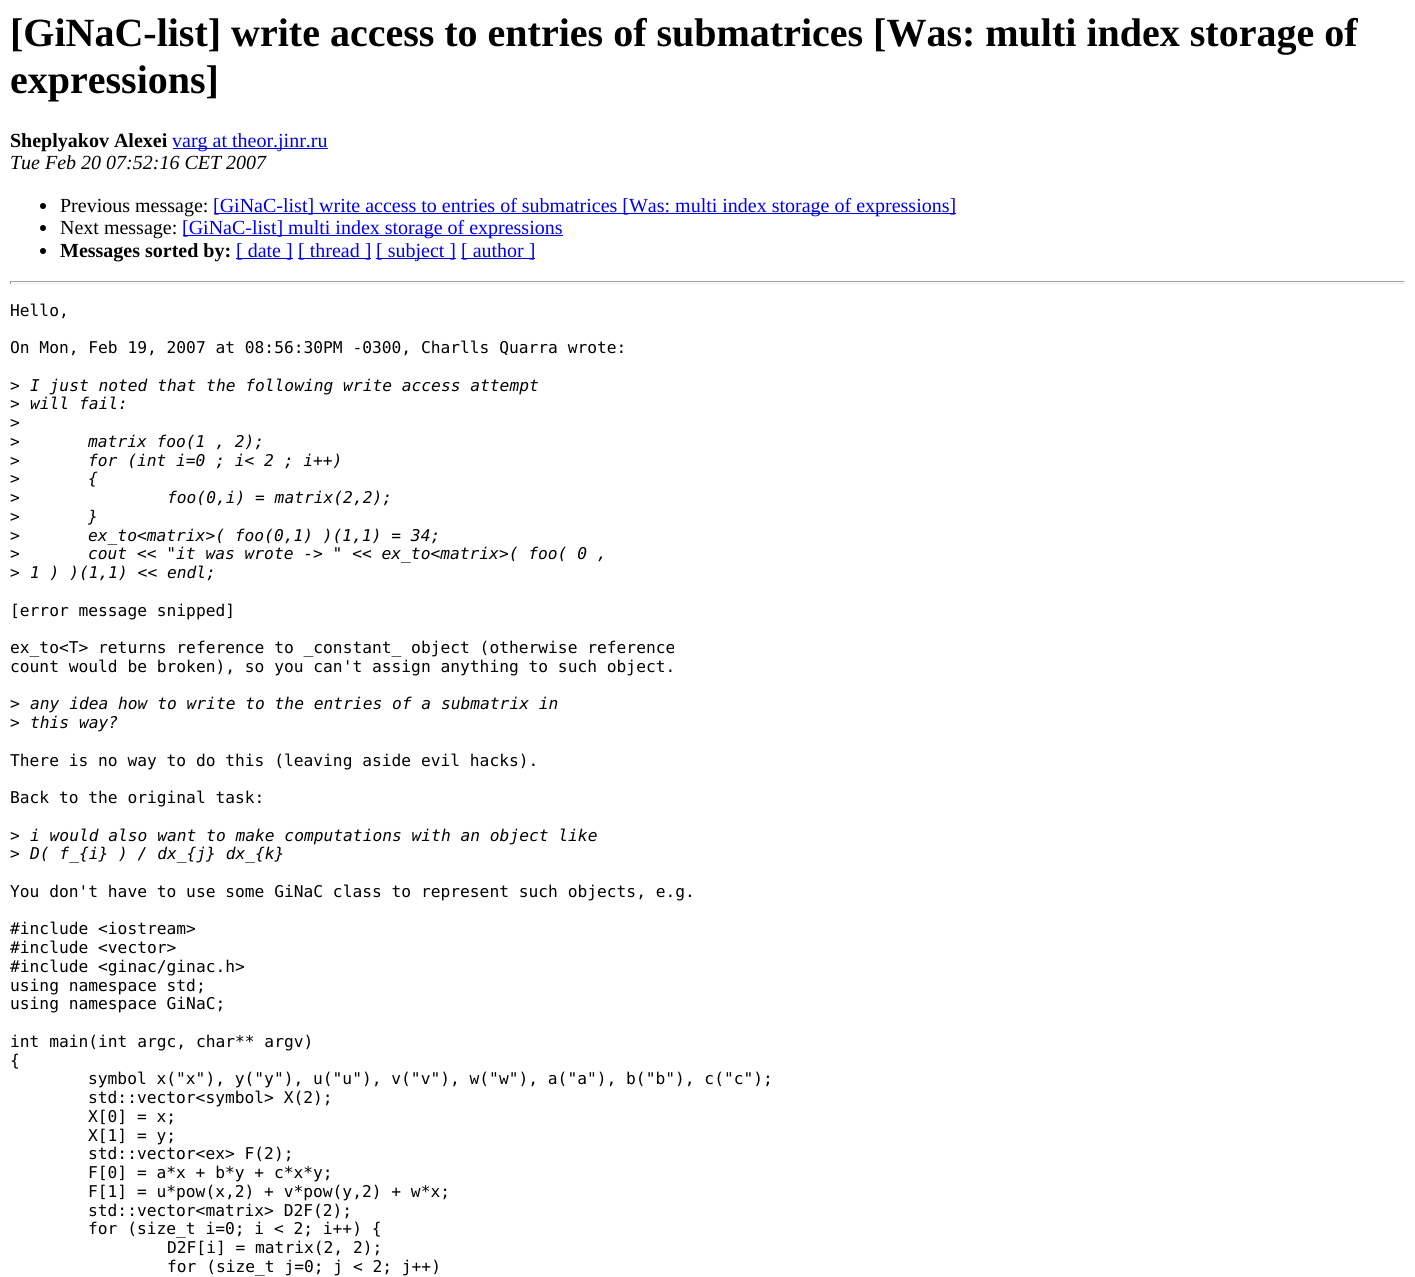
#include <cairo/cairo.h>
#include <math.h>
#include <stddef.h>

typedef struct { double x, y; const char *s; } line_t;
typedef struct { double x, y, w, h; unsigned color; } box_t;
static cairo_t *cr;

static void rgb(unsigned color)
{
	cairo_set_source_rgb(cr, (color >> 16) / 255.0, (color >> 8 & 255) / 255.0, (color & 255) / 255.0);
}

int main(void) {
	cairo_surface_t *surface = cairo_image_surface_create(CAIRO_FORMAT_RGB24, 1415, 1277);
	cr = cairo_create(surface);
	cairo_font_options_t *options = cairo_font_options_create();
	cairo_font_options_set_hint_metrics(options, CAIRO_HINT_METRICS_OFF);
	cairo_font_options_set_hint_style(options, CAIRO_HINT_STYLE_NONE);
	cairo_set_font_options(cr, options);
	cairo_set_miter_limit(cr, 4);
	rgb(0xffffff);
	cairo_paint(cr);
	rgb(0x0000ee);
	cairo_rectangle(cr, 173, 148, 155, 1);
	cairo_fill(cr);
	rgb(0x000000);
	cairo_arc(cr, 43, 206, 3, 0, 2 * M_PI);
	cairo_fill(cr);
	rgb(0x0000ee);
	cairo_rectangle(cr, 214, 213, 742, 1);
	cairo_fill(cr);
	rgb(0x000000);
	cairo_arc(cr, 43, 228, 3, 0, 2 * M_PI);
	cairo_fill(cr);
	rgb(0x0000ee);
	cairo_rectangle(cr, 183, 235, 380, 1);
	cairo_fill(cr);
	rgb(0x000000);
	cairo_arc(cr, 43, 251, 3, 0, 2 * M_PI);
	cairo_fill(cr);
	{
		static const box_t items[] = {
			{236, 258, 57, 1, 0x0000ee},
			{298, 258, 73, 1, 0x0000ee},
			{376, 258, 80, 1, 0x0000ee},
			{461, 258, 74, 1, 0x0000ee},
			{10, 281, 1395, 1, 0x9f9f9f},
			{1404, 281, 1, 3, 0xeeeeee},
			{10, 283, 1395, 1, 0xeeeeee},
			{10, 281, 1, 3, 0x9f9f9f},
		};
		for (size_t i = 0; i < sizeof items / sizeof *items; i++) {
			rgb(items[i].color);
			cairo_rectangle(cr, items[i].x, items[i].y, items[i].w, items[i].h);
			cairo_fill(cr);
		}
	}
	cairo_select_font_face(cr, "Liberation Serif", CAIRO_FONT_SLANT_NORMAL, CAIRO_FONT_WEIGHT_BOLD);
	cairo_set_font_size(cr, 40);
	rgb(0x000000);
	cairo_move_to(cr, 10, 46);
	cairo_show_text(cr, "[GiNaC-list] write access to entries of submatrices [Was: multi index storage of");
	cairo_move_to(cr, 10, 93);
	cairo_show_text(cr, "expressions]");
	cairo_set_font_size(cr, 20);
	cairo_move_to(cr, 10, 147);
	cairo_show_text(cr, "Sheplyakov Alexei");
	cairo_select_font_face(cr, "Liberation Serif", CAIRO_FONT_SLANT_NORMAL, CAIRO_FONT_WEIGHT_NORMAL);
	rgb(0x0000ee);
	cairo_move_to(cr, 172, 147);
	cairo_show_text(cr, "varg at theor.jinr.ru");
	cairo_select_font_face(cr, "Liberation Serif", CAIRO_FONT_SLANT_ITALIC, CAIRO_FONT_WEIGHT_NORMAL);
	rgb(0x000000);
	cairo_move_to(cr, 10, 169);
	cairo_show_text(cr, "Tue Feb 20 07:52:16 CET 2007");
	cairo_select_font_face(cr, "Liberation Serif", CAIRO_FONT_SLANT_NORMAL, CAIRO_FONT_WEIGHT_NORMAL);
	cairo_move_to(cr, 60, 212);
	cairo_show_text(cr, "Previous message:");
	rgb(0x0000ee);
	cairo_move_to(cr, 213, 212);
	cairo_show_text(cr, "[GiNaC-list] write access to entries of submatrices [Was: multi index storage of expressions]");
	rgb(0x000000);
	cairo_move_to(cr, 60, 234);
	cairo_show_text(cr, "Next message:");
	rgb(0x0000ee);
	cairo_move_to(cr, 182, 234);
	cairo_show_text(cr, "[GiNaC-list] multi index storage of expressions");
	cairo_select_font_face(cr, "Liberation Serif", CAIRO_FONT_SLANT_NORMAL, CAIRO_FONT_WEIGHT_BOLD);
	rgb(0x000000);
	cairo_move_to(cr, 60, 257);
	cairo_show_text(cr, "Messages sorted by:");
	cairo_select_font_face(cr, "Liberation Serif", CAIRO_FONT_SLANT_NORMAL, CAIRO_FONT_WEIGHT_NORMAL);
	rgb(0x0000ee);
	{
		static const line_t items[] = {
			{236, 257, "[ date ]"},
			{298, 257, "[ thread ]"},
			{376, 257, "[ subject ]"},
			{461, 257, "[ author ]"},
		};
		for (size_t i = 0; i < sizeof items / sizeof *items; i++) {
			cairo_move_to(cr, items[i].x, items[i].y);
			cairo_show_text(cr, items[i].s);
		}
	}
	cairo_select_font_face(cr, "DejaVu Sans Mono", CAIRO_FONT_SLANT_NORMAL, CAIRO_FONT_WEIGHT_NORMAL);
	cairo_set_font_size(cr, 16.25);
	rgb(0x000000);
	{
		static const line_t items[] = {
			{10, 316, "Hello,"},
			{10, 353, "On Mon, Feb 19, 2007 at 08:56:30PM -0300, Charlls Quarra wrote:"},
			{10, 391, ">"},
		};
		for (size_t i = 0; i < sizeof items / sizeof *items; i++) {
			cairo_move_to(cr, items[i].x, items[i].y);
			cairo_show_text(cr, items[i].s);
		}
	}
	cairo_select_font_face(cr, "DejaVu Sans Mono", CAIRO_FONT_SLANT_ITALIC, CAIRO_FONT_WEIGHT_NORMAL);
	cairo_move_to(cr, 30, 391);
	cairo_show_text(cr, "I just noted that the following write access attempt");
	cairo_select_font_face(cr, "DejaVu Sans Mono", CAIRO_FONT_SLANT_NORMAL, CAIRO_FONT_WEIGHT_NORMAL);
	cairo_move_to(cr, 10, 409);
	cairo_show_text(cr, ">");
	cairo_select_font_face(cr, "DejaVu Sans Mono", CAIRO_FONT_SLANT_ITALIC, CAIRO_FONT_WEIGHT_NORMAL);
	cairo_move_to(cr, 30, 409);
	cairo_show_text(cr, "will fail:");
	cairo_select_font_face(cr, "DejaVu Sans Mono", CAIRO_FONT_SLANT_NORMAL, CAIRO_FONT_WEIGHT_NORMAL);
	cairo_move_to(cr, 10, 428);
	cairo_show_text(cr, ">");
	cairo_move_to(cr, 10, 447);
	cairo_show_text(cr, ">");
	cairo_select_font_face(cr, "DejaVu Sans Mono", CAIRO_FONT_SLANT_ITALIC, CAIRO_FONT_WEIGHT_NORMAL);
	cairo_move_to(cr, 88, 447);
	cairo_show_text(cr, "matrix foo(1 , 2);");
	cairo_select_font_face(cr, "DejaVu Sans Mono", CAIRO_FONT_SLANT_NORMAL, CAIRO_FONT_WEIGHT_NORMAL);
	cairo_move_to(cr, 10, 466);
	cairo_show_text(cr, ">");
	cairo_select_font_face(cr, "DejaVu Sans Mono", CAIRO_FONT_SLANT_ITALIC, CAIRO_FONT_WEIGHT_NORMAL);
	cairo_move_to(cr, 88, 466);
	cairo_show_text(cr, "for (int i=0 ; i< 2 ; i++)");
	cairo_select_font_face(cr, "DejaVu Sans Mono", CAIRO_FONT_SLANT_NORMAL, CAIRO_FONT_WEIGHT_NORMAL);
	cairo_move_to(cr, 10, 484);
	cairo_show_text(cr, ">");
	cairo_select_font_face(cr, "DejaVu Sans Mono", CAIRO_FONT_SLANT_ITALIC, CAIRO_FONT_WEIGHT_NORMAL);
	cairo_move_to(cr, 88, 484);
	cairo_show_text(cr, "{");
	cairo_select_font_face(cr, "DejaVu Sans Mono", CAIRO_FONT_SLANT_NORMAL, CAIRO_FONT_WEIGHT_NORMAL);
	cairo_move_to(cr, 10, 503);
	cairo_show_text(cr, ">");
	cairo_select_font_face(cr, "DejaVu Sans Mono", CAIRO_FONT_SLANT_ITALIC, CAIRO_FONT_WEIGHT_NORMAL);
	cairo_move_to(cr, 167, 503);
	cairo_show_text(cr, "foo(0,i) = matrix(2,2);");
	cairo_select_font_face(cr, "DejaVu Sans Mono", CAIRO_FONT_SLANT_NORMAL, CAIRO_FONT_WEIGHT_NORMAL);
	cairo_move_to(cr, 10, 522);
	cairo_show_text(cr, ">");
	cairo_select_font_face(cr, "DejaVu Sans Mono", CAIRO_FONT_SLANT_ITALIC, CAIRO_FONT_WEIGHT_NORMAL);
	cairo_move_to(cr, 88, 522);
	cairo_show_text(cr, "}");
	cairo_select_font_face(cr, "DejaVu Sans Mono", CAIRO_FONT_SLANT_NORMAL, CAIRO_FONT_WEIGHT_NORMAL);
	cairo_move_to(cr, 10, 541);
	cairo_show_text(cr, ">");
	cairo_select_font_face(cr, "DejaVu Sans Mono", CAIRO_FONT_SLANT_ITALIC, CAIRO_FONT_WEIGHT_NORMAL);
	cairo_move_to(cr, 88, 541);
	cairo_show_text(cr, "ex_to<matrix>( foo(0,1) )(1,1) = 34;");
	cairo_select_font_face(cr, "DejaVu Sans Mono", CAIRO_FONT_SLANT_NORMAL, CAIRO_FONT_WEIGHT_NORMAL);
	cairo_move_to(cr, 10, 559);
	cairo_show_text(cr, ">");
	cairo_select_font_face(cr, "DejaVu Sans Mono", CAIRO_FONT_SLANT_ITALIC, CAIRO_FONT_WEIGHT_NORMAL);
	cairo_move_to(cr, 88, 559);
	cairo_show_text(cr, "cout << \"it was wrote -> \" << ex_to<matrix>( foo( 0 ,");
	cairo_select_font_face(cr, "DejaVu Sans Mono", CAIRO_FONT_SLANT_NORMAL, CAIRO_FONT_WEIGHT_NORMAL);
	cairo_move_to(cr, 10, 578);
	cairo_show_text(cr, ">");
	cairo_select_font_face(cr, "DejaVu Sans Mono", CAIRO_FONT_SLANT_ITALIC, CAIRO_FONT_WEIGHT_NORMAL);
	cairo_move_to(cr, 30, 578);
	cairo_show_text(cr, "1 ) )(1,1) << endl;");
	cairo_select_font_face(cr, "DejaVu Sans Mono", CAIRO_FONT_SLANT_NORMAL, CAIRO_FONT_WEIGHT_NORMAL);
	{
		static const line_t items[] = {
			{10, 616, "[error message snipped]"},
			{10, 653, "ex_to<T> returns reference to _constant_ object (otherwise reference"},
			{10, 672, "count would be broken), so you can't assign anything to such object."},
			{10, 709, ">"},
		};
		for (size_t i = 0; i < sizeof items / sizeof *items; i++) {
			cairo_move_to(cr, items[i].x, items[i].y);
			cairo_show_text(cr, items[i].s);
		}
	}
	cairo_select_font_face(cr, "DejaVu Sans Mono", CAIRO_FONT_SLANT_ITALIC, CAIRO_FONT_WEIGHT_NORMAL);
	cairo_move_to(cr, 30, 709);
	cairo_show_text(cr, "any idea how to write to the entries of a submatrix in");
	cairo_select_font_face(cr, "DejaVu Sans Mono", CAIRO_FONT_SLANT_NORMAL, CAIRO_FONT_WEIGHT_NORMAL);
	cairo_move_to(cr, 10, 728);
	cairo_show_text(cr, ">");
	cairo_select_font_face(cr, "DejaVu Sans Mono", CAIRO_FONT_SLANT_ITALIC, CAIRO_FONT_WEIGHT_NORMAL);
	cairo_move_to(cr, 30, 728);
	cairo_show_text(cr, "this way?");
	cairo_select_font_face(cr, "DejaVu Sans Mono", CAIRO_FONT_SLANT_NORMAL, CAIRO_FONT_WEIGHT_NORMAL);
	{
		static const line_t items[] = {
			{10, 766, "There is no way to do this (leaving aside evil hacks)."},
			{10, 803, "Back to the original task:"},
			{10, 841, ">"},
		};
		for (size_t i = 0; i < sizeof items / sizeof *items; i++) {
			cairo_move_to(cr, items[i].x, items[i].y);
			cairo_show_text(cr, items[i].s);
		}
	}
	cairo_select_font_face(cr, "DejaVu Sans Mono", CAIRO_FONT_SLANT_ITALIC, CAIRO_FONT_WEIGHT_NORMAL);
	cairo_move_to(cr, 30, 841);
	cairo_show_text(cr, "i would also want to make computations with an object like");
	cairo_select_font_face(cr, "DejaVu Sans Mono", CAIRO_FONT_SLANT_NORMAL, CAIRO_FONT_WEIGHT_NORMAL);
	cairo_move_to(cr, 10, 859);
	cairo_show_text(cr, ">");
	cairo_select_font_face(cr, "DejaVu Sans Mono", CAIRO_FONT_SLANT_ITALIC, CAIRO_FONT_WEIGHT_NORMAL);
	cairo_move_to(cr, 30, 859);
	cairo_show_text(cr, "D( f_{i} ) / dx_{j} dx_{k}");
	cairo_select_font_face(cr, "DejaVu Sans Mono", CAIRO_FONT_SLANT_NORMAL, CAIRO_FONT_WEIGHT_NORMAL);
	{
		static const line_t items[] = {
			{10, 897, "You don't have to use some GiNaC class to represent such objects, e.g."},
			{10, 934, "#include <iostream>"},
			{10, 953, "#include <vector>"},
			{10, 972, "#include <ginac/ginac.h>"},
			{10, 991, "using namespace std;"},
			{10, 1009, "using namespace GiNaC;"},
			{10, 1047, "int main(int argc, char** argv)"},
			{10, 1066, "{"},
			{88, 1084, "symbol x(\"x\"), y(\"y\"), u(\"u\"), v(\"v\"), w(\"w\"), a(\"a\"), b(\"b\"), c(\"c\");"},
			{88, 1103, "std::vector<symbol> X(2);"},
			{88, 1122, "X[0] = x;"},
			{88, 1141, "X[1] = y;"},
			{88, 1159, "std::vector<ex> F(2);"},
			{88, 1178, "F[0] = a*x + b*y + c*x*y;"},
			{88, 1197, "F[1] = u*pow(x,2) + v*pow(y,2) + w*x;"},
			{88, 1216, "std::vector<matrix> D2F(2);"},
			{88, 1234, "for (size_t i=0; i < 2; i++) {"},
			{167, 1253, "D2F[i] = matrix(2, 2);"},
			{167, 1272, "for (size_t j=0; j < 2; j++)"},
		};
		for (size_t i = 0; i < sizeof items / sizeof *items; i++) {
			cairo_move_to(cr, items[i].x, items[i].y);
			cairo_show_text(cr, items[i].s);
		}
	}
	cairo_surface_write_to_png(surface, "page.png");
	cairo_font_options_destroy(options);
	cairo_destroy(cr);
	cairo_surface_destroy(surface);
	return 0;
}
